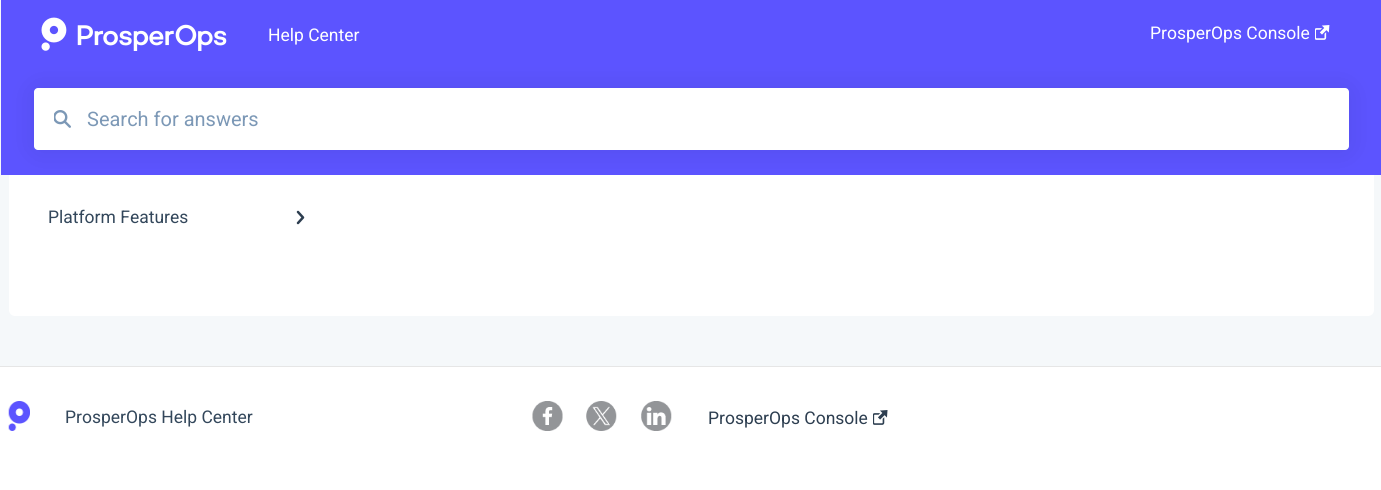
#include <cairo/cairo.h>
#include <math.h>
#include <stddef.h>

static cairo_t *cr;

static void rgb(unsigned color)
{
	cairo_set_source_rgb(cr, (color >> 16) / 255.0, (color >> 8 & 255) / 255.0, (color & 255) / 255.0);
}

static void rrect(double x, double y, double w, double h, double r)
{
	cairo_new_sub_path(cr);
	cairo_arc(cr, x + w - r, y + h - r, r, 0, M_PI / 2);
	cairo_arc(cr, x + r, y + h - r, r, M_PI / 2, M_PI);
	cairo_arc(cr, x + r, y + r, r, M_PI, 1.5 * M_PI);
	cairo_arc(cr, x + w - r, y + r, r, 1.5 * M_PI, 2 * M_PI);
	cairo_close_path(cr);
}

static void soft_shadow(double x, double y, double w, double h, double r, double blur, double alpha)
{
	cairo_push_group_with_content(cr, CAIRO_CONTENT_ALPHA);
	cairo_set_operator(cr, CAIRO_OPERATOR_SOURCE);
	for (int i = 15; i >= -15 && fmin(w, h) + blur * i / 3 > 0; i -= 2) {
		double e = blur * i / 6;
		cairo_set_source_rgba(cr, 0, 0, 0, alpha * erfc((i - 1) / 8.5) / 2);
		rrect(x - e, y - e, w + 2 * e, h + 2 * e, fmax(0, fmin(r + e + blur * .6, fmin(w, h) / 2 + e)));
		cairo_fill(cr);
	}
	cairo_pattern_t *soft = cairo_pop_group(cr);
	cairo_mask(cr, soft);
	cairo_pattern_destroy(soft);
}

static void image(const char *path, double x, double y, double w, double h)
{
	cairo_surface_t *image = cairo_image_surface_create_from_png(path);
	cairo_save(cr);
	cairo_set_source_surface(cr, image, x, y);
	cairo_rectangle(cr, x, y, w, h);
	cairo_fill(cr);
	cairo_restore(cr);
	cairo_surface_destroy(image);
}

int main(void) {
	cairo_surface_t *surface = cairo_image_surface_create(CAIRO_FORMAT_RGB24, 1381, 490);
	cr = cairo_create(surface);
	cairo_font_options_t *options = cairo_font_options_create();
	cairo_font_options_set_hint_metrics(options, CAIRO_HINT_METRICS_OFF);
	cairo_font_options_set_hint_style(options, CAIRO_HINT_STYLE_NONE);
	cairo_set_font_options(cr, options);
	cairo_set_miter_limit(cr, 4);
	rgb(0xf5f8fa);
	cairo_paint(cr);
	rgb(0xffffff);
	rrect(9, -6, 1365, 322, 6);
	cairo_fill(cr);
	rgb(0x5c54ff);
	cairo_rectangle(cr, 1, 0, 1380, 175);
	cairo_fill(cr);
	rgb(0x000000);
	soft_shadow(34, 89, 1315, 62, 4, 15, 0.08);
	image("img/1.png", 41, 17, 186, 34);
	image("img/2.png", 1315, 25, 15, 15);
	rgb(0xffffff);
	rrect(34, 88, 1315, 62, 4);
	cairo_fill(cr);
	image("img/3.png", 54, 110, 17, 18);
	cairo_new_path(cr);
	cairo_move_to(cr, 298, 212);
	cairo_line_to(cr, 303, 217.5);
	cairo_line_to(cr, 298, 223);
	rgb(0x2d3e50);
	cairo_set_line_width(cr, 2.5);
	cairo_set_line_cap(cr, CAIRO_LINE_CAP_ROUND);
	cairo_set_line_join(cr, CAIRO_LINE_JOIN_ROUND);
	cairo_stroke(cr);
	rgb(0xffffff);
	cairo_rectangle(cr, 0, 367, 1381, 123);
	cairo_fill(cr);
	rgb(0xe6e6e6);
	cairo_rectangle(cr, 0, 366, 1381, 1);
	cairo_fill(cr);
	image("img/4.png", 8, 401, 22, 30);
	image("img/5.png", 532, 401, 31, 30);
	image("img/6.png", 586, 401, 31, 30);
	image("img/7.png", 641, 401, 31, 30);
	image("img/8.png", 873, 410, 15, 15);
	cairo_select_font_face(cr, "Roboto", CAIRO_FONT_SLANT_NORMAL, CAIRO_FONT_WEIGHT_NORMAL);
	cairo_set_font_size(cr, 17.5);
	rgb(0xffffff);
	cairo_move_to(cr, 268, 41);
	cairo_show_text(cr, "Help Center");
	cairo_move_to(cr, 1150, 39);
	cairo_show_text(cr, "ProsperOps Console");
	cairo_set_font_size(cr, 20);
	rgb(0x7c98b6);
	cairo_move_to(cr, 87, 126);
	cairo_show_text(cr, "Search for answers");
	cairo_set_font_size(cr, 17.5);
	rgb(0x33475b);
	cairo_move_to(cr, 48, 223);
	cairo_show_text(cr, "Platform Features");
	cairo_move_to(cr, 65, 423);
	cairo_show_text(cr, "ProsperOps Help Center");
	rgb(0x2d3e50);
	cairo_move_to(cr, 708, 424);
	cairo_show_text(cr, "ProsperOps Console");
	cairo_surface_write_to_png(surface, "page.png");
	cairo_font_options_destroy(options);
	cairo_destroy(cr);
	cairo_surface_destroy(surface);
	return 0;
}
